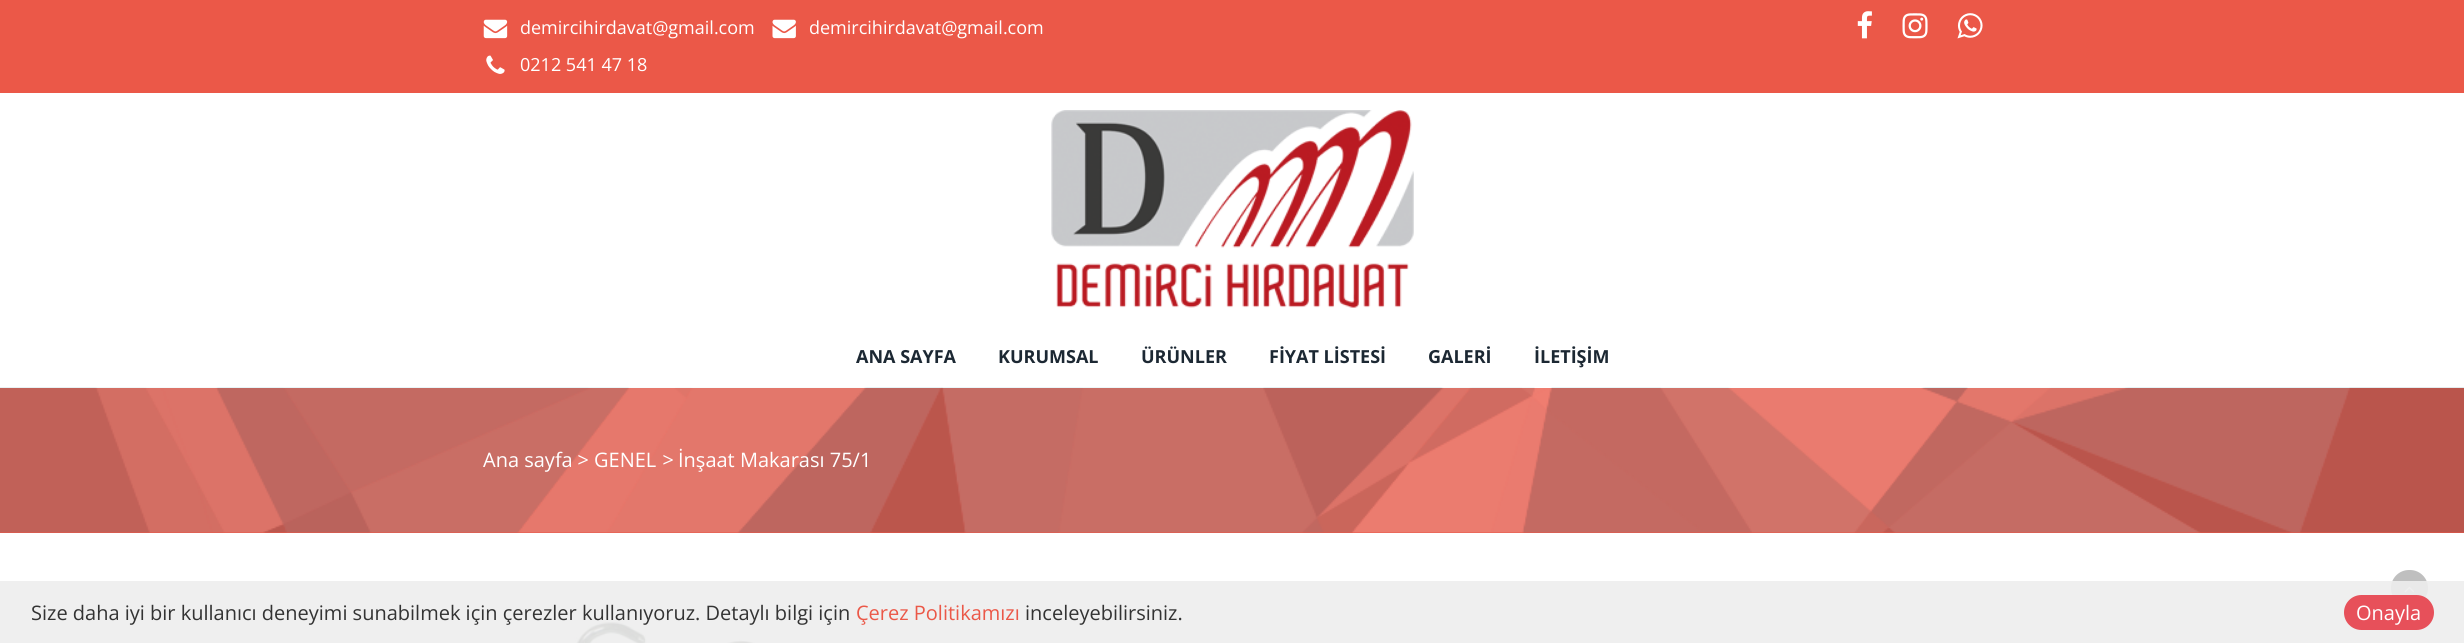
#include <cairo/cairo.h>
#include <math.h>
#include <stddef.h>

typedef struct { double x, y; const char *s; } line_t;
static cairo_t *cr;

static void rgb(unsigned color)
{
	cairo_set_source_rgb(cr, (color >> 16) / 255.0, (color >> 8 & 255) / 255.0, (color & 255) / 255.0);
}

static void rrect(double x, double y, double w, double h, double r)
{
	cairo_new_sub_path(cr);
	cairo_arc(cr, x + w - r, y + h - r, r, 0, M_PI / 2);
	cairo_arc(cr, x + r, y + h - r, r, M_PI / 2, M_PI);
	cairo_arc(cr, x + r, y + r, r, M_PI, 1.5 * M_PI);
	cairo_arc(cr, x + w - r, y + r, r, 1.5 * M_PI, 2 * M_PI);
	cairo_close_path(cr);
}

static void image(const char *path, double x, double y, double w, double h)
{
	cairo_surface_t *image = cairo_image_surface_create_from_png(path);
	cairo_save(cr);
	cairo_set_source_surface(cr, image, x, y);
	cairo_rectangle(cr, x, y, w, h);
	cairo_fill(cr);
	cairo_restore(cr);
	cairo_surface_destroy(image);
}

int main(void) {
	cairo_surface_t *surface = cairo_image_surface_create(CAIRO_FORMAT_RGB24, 2464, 643);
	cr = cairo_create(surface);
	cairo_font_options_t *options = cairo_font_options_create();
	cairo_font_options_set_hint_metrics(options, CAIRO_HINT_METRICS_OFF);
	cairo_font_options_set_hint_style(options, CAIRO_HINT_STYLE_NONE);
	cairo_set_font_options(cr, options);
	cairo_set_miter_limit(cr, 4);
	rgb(0xffffff);
	cairo_paint(cr);
	rgb(0xeb5848);
	cairo_rectangle(cr, 0, 0, 2464, 93);
	cairo_fill(cr);
	image("img/1.png", 483, 19, 25, 20);
	image("img/2.png", 772, 19, 24, 20);
	image("img/3.png", 486, 55, 19, 19);
	image("img/4.png", 1857, 11, 15, 28);
	image("img/5.png", 1902, 13, 26, 26);
	image("img/6.png", 1957, 13, 26, 26);
	image("img/7.png", 1051, 110, 363, 198);
	cairo_rectangle(cr, 0, 388, 2464, 145);
	cairo_fill(cr);
	image("img/8.png", 0, 387, 2464, 146);
	rgb(0xbfbfbf);
	rrect(2391, 570, 37, 36, 18);
	cairo_fill(cr);
	image("img/9.png", 2404, 586, 11, 7);
	image("img/10.png", 574, 620, 181, 23);
	cairo_set_source_rgba(cr, 0.933, 0.933, 0.933, 0.9);
	cairo_rectangle(cr, 0, 581, 2464, 62);
	cairo_fill(cr);
	rgb(0xe7505a);
	rrect(2344, 595, 90, 35, 17.5);
	cairo_fill(cr);
	cairo_select_font_face(cr, "Open Sans", CAIRO_FONT_SLANT_NORMAL, CAIRO_FONT_WEIGHT_NORMAL);
	cairo_set_font_size(cr, 18);
	rgb(0xffffff);
	{
		static const line_t items[] = {
			{520, 34, "demircihirdavat@gmail.com"},
			{809, 34, "demircihirdavat@gmail.com"},
			{520, 71, "0212 541 47 18"},
		};
		for (size_t i = 0; i < sizeof items / sizeof *items; i++) {
			cairo_move_to(cr, items[i].x, items[i].y);
			cairo_show_text(cr, items[i].s);
		}
	}
	cairo_select_font_face(cr, "Open Sans", CAIRO_FONT_SLANT_NORMAL, CAIRO_FONT_WEIGHT_BOLD);
	rgb(0x1c2833);
	{
		static const line_t items[] = {
			{856, 363, "ANA SAYFA"},
			{998, 363, "KURUMSAL"},
			{1141, 363, "ÜRÜNLER"},
			{1269, 363, "FİYAT LİSTESİ"},
			{1428, 363, "GALERİ"},
			{1534, 363, "İLETİŞİM"},
		};
		for (size_t i = 0; i < sizeof items / sizeof *items; i++) {
			cairo_move_to(cr, items[i].x, items[i].y);
			cairo_show_text(cr, items[i].s);
		}
	}
	cairo_select_font_face(cr, "Open Sans", CAIRO_FONT_SLANT_NORMAL, CAIRO_FONT_WEIGHT_NORMAL);
	cairo_set_font_size(cr, 20);
	rgb(0xffffff);
	cairo_move_to(cr, 483, 467);
	cairo_show_text(cr, "Ana sayfa");
	cairo_select_font_face(cr, "Open Sans", CAIRO_FONT_SLANT_ITALIC, CAIRO_FONT_WEIGHT_NORMAL);
	cairo_move_to(cr, 577, 467);
	cairo_show_text(cr, ">");
	cairo_select_font_face(cr, "Open Sans", CAIRO_FONT_SLANT_NORMAL, CAIRO_FONT_WEIGHT_NORMAL);
	cairo_move_to(cr, 594, 467);
	cairo_show_text(cr, "GENEL");
	cairo_select_font_face(cr, "Open Sans", CAIRO_FONT_SLANT_ITALIC, CAIRO_FONT_WEIGHT_NORMAL);
	cairo_move_to(cr, 662, 467);
	cairo_show_text(cr, ">");
	cairo_select_font_face(cr, "Open Sans", CAIRO_FONT_SLANT_NORMAL, CAIRO_FONT_WEIGHT_NORMAL);
	cairo_move_to(cr, 678, 467);
	cairo_show_text(cr, "İnşaat Makarası 75/1");
	rgb(0x333333);
	cairo_move_to(cr, 31, 620);
	cairo_show_text(cr, "Size daha iyi bir kullanıcı deneyimi sunabilmek için çerezler kullanıyoruz. Detaylı bilgi için");
	rgb(0xeb5848);
	cairo_move_to(cr, 856, 620);
	cairo_show_text(cr, "Çerez Politikamızı");
	rgb(0x333333);
	cairo_move_to(cr, 1025, 620);
	cairo_show_text(cr, "inceleyebilirsiniz.");
	rgb(0xffffff);
	cairo_move_to(cr, 2356, 620);
	cairo_show_text(cr, "Onayla");
	cairo_surface_write_to_png(surface, "page.png");
	cairo_font_options_destroy(options);
	cairo_destroy(cr);
	cairo_surface_destroy(surface);
	return 0;
}
